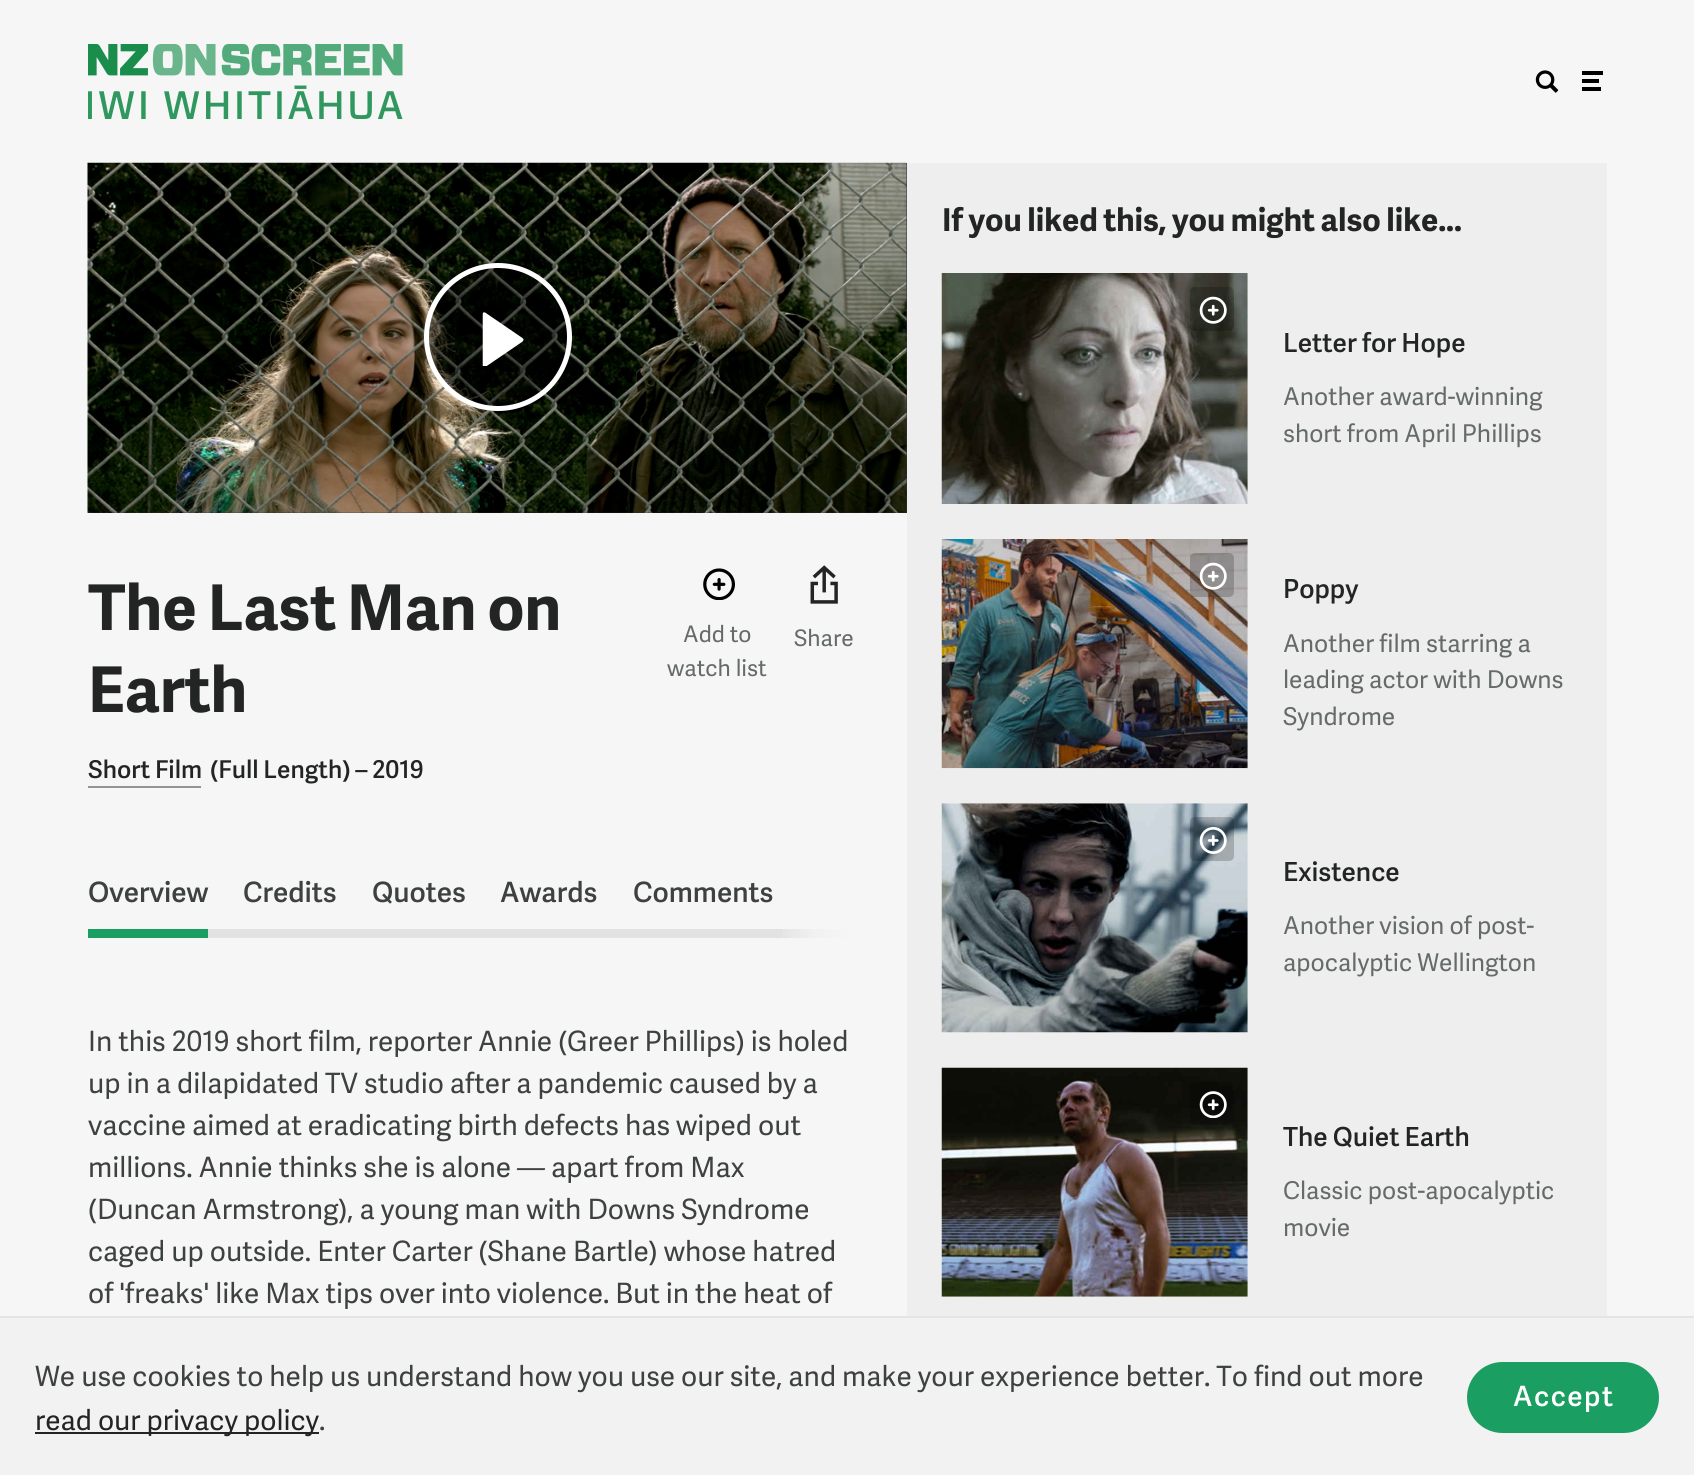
#include <cairo/cairo.h>
#include <math.h>
#include <stddef.h>

typedef struct { double x, y; const char *s; } line_t;
typedef struct { double x, y, w, h; unsigned color; } box_t;
static cairo_t *cr;

static void rgb(unsigned color)
{
	cairo_set_source_rgb(cr, (color >> 16) / 255.0, (color >> 8 & 255) / 255.0, (color & 255) / 255.0);
}

static void tracked(double x, double y, const char *s, double letter, double word)
{
	cairo_move_to(cr, x, y);
	while (*s) {
		char ch[5] = {0};
		int n = 0;
		do ch[n++] = *s++; while ((*s & 0xC0) == 0x80);
		cairo_show_text(cr, ch);
		cairo_rel_move_to(cr, letter + word * (*ch == ' '), 0);
	}
}

static void rrect(double x, double y, double w, double h, double r)
{
	cairo_new_sub_path(cr);
	cairo_arc(cr, x + w - r, y + h - r, r, 0, M_PI / 2);
	cairo_arc(cr, x + r, y + h - r, r, M_PI / 2, M_PI);
	cairo_arc(cr, x + r, y + r, r, M_PI, 1.5 * M_PI);
	cairo_arc(cr, x + w - r, y + r, r, 1.5 * M_PI, 2 * M_PI);
	cairo_close_path(cr);
}

static void image(const char *path, double x, double y, double w, double h)
{
	cairo_surface_t *image = cairo_image_surface_create_from_png(path);
	cairo_save(cr);
	cairo_set_source_surface(cr, image, x, y);
	cairo_rectangle(cr, x, y, w, h);
	cairo_fill(cr);
	cairo_restore(cr);
	cairo_surface_destroy(image);
}

int main(void) {
	cairo_surface_t *surface = cairo_image_surface_create(CAIRO_FORMAT_RGB24, 1694, 1475);
	cr = cairo_create(surface);
	cairo_font_options_t *options = cairo_font_options_create();
	cairo_font_options_set_hint_metrics(options, CAIRO_HINT_METRICS_OFF);
	cairo_font_options_set_hint_style(options, CAIRO_HINT_STYLE_NONE);
	cairo_set_font_options(cr, options);
	cairo_set_miter_limit(cr, 4);
	cairo_pattern_t *gradient;
	rgb(0xf6f6f6);
	cairo_paint(cr);
	image("img/1.png", 88, 44, 315, 75);
	image("img/2.png", 1535, 70, 24, 23);
	{
		static const box_t items[] = {
			{1582, 71, 21, 4, 0x000000},
			{1582, 79, 17, 4, 0x000000},
			{1582, 87, 19, 4, 0x000000},
			{88, 163, 819, 350, 0x303030},
		};
		for (size_t i = 0; i < sizeof items / sizeof *items; i++) {
			rgb(items[i].color);
			cairo_rectangle(cr, items[i].x, items[i].y, items[i].w, items[i].h);
			cairo_fill(cr);
		}
	}
	image("img/3.png", 87, 162, 820, 351);
	cairo_set_source_rgba(cr, 0, 0, 0, 0.4);
	cairo_arc(cr, 498, 337, 71.5, 0, 2 * M_PI);
	cairo_fill_preserve(cr);
	rgb(0xffffff);
	cairo_set_line_width(cr, 5);
	cairo_stroke(cr);
	image("img/4.png", 482, 312, 42, 54);
	rgb(0x949494);
	cairo_rectangle(cr, 88, 786, 113, 2);
	cairo_fill(cr);
	image("img/5.png", 703, 568, 32, 32);
	image("img/6.png", 810, 565, 28, 39);
	rgb(0x1a9e62);
	cairo_rectangle(cr, 88, 929, 120, 9);
	cairo_fill(cr);
	rgb(0xe2e2e2);
	cairo_rectangle(cr, 208, 929, 645, 9);
	cairo_fill(cr);
	gradient = cairo_pattern_create_linear(775, 904, 854, 904);
	cairo_pattern_add_color_stop_rgba(gradient, 0, 0.965, 0.965, 0.965, 0);
	cairo_pattern_add_color_stop_rgba(gradient, 0.5, 0.965, 0.965, 0.965, 0.75);
	cairo_pattern_add_color_stop_rgba(gradient, 1, 0.965, 0.965, 0.965, 1);
	cairo_set_source(cr, gradient);
	cairo_pattern_destroy(gradient);
	cairo_rectangle(cr, 782, 929, 71, 9);
	cairo_fill(cr);
	rgb(0xeeeeee);
	cairo_rectangle(cr, 907, 163, 700, 1153);
	cairo_fill(cr);
	image("img/7.png", 941, 273, 307, 231);
	cairo_set_source_rgba(cr, 0, 0, 0, 0.2);
	rrect(1190, 287, 44, 44, 5);
	cairo_fill(cr);
	image("img/8.png", 1199, 296, 28, 28);
	image("img/9.png", 941, 539, 307, 230);
	rrect(1190, 553, 44, 44, 5);
	cairo_fill(cr);
	image("img/10.png", 1199, 562, 28, 28);
	image("img/11.png", 941, 803, 307, 230);
	rrect(1190, 817, 44, 44, 5);
	cairo_fill(cr);
	image("img/12.png", 1199, 827, 28, 27);
	image("img/13.png", 941, 1067, 307, 230);
	rrect(1190, 1082, 44, 43, 5);
	cairo_fill(cr);
	image("img/14.png", 1199, 1091, 28, 27);
	{
		static const box_t items[] = {
			{0, 1318, 1694, 157, 0xf2f2f2},
			{0, 1316, 1694, 2, 0xe4e4e4},
			{35, 1432, 284, 2, 0x232524},
		};
		for (size_t i = 0; i < sizeof items / sizeof *items; i++) {
			rgb(items[i].color);
			cairo_rectangle(cr, items[i].x, items[i].y, items[i].w, items[i].h);
			cairo_fill(cr);
		}
	}
	rgb(0x1a9e62);
	rrect(1469, 1364, 188, 67, 33.5);
	cairo_fill_preserve(cr);
	cairo_set_line_width(cr, 4);
	cairo_stroke(cr);
	cairo_select_font_face(cr, "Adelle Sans", CAIRO_FONT_SLANT_NORMAL, CAIRO_FONT_WEIGHT_BOLD);
	cairo_set_font_size(cr, 63);
	rgb(0x232524);
	cairo_move_to(cr, 88, 630);
	cairo_show_text(cr, "The Last Man on");
	cairo_move_to(cr, 88, 712);
	cairo_show_text(cr, "Earth");
	cairo_select_font_face(cr, "Adelle Sans SemiBold", CAIRO_FONT_SLANT_NORMAL, CAIRO_FONT_WEIGHT_NORMAL);
	cairo_set_font_size(cr, 24.5);
	cairo_move_to(cr, 88, 778);
	cairo_show_text(cr, "Short Film");
	cairo_move_to(cr, 210, 778);
	cairo_show_text(cr, "(Full Length) – 2019");
	cairo_select_font_face(cr, "Adelle Sans", CAIRO_FONT_SLANT_NORMAL, CAIRO_FONT_WEIGHT_NORMAL);
	cairo_set_font_size(cr, 22.75);
	rgb(0x656b68);
	{
		static const line_t items[] = {
			{683, 642, "Add to"},
			{667, 676, "watch list"},
			{794, 646, "Share"},
		};
		for (size_t i = 0; i < sizeof items / sizeof *items; i++) {
			cairo_move_to(cr, items[i].x, items[i].y);
			cairo_show_text(cr, items[i].s);
		}
	}
	cairo_select_font_face(cr, "Adelle Sans SemiBold", CAIRO_FONT_SLANT_NORMAL, CAIRO_FONT_WEIGHT_NORMAL);
	cairo_set_font_size(cr, 28);
	rgb(0x3d413f);
	{
		static const line_t items[] = {
			{88, 902, "Overview"},
			{243, 902, "Credits"},
			{372, 902, "Quotes"},
			{500, 902, "Awards"},
			{633, 902, "Comments"},
		};
		for (size_t i = 0; i < sizeof items / sizeof *items; i++) {
			cairo_move_to(cr, items[i].x, items[i].y);
			cairo_show_text(cr, items[i].s);
		}
	}
	cairo_select_font_face(cr, "Adelle Sans", CAIRO_FONT_SLANT_NORMAL, CAIRO_FONT_WEIGHT_NORMAL);
	{
		static const line_t items[] = {
			{88, 1051, "In this 2019 short film, reporter Annie (Greer Phillips) is holed"},
			{88, 1093, "up in a dilapidated TV studio after a pandemic caused by a"},
			{88, 1135, "vaccine aimed at eradicating birth defects has wiped out"},
			{88, 1177, "millions. Annie thinks she is alone"},
		};
		for (size_t i = 0; i < sizeof items / sizeof *items; i++) {
			cairo_move_to(cr, items[i].x, items[i].y);
			cairo_show_text(cr, items[i].s);
		}
	}
	cairo_select_font_face(cr, "Adelle Sans", CAIRO_FONT_SLANT_ITALIC, CAIRO_FONT_WEIGHT_NORMAL);
	cairo_move_to(cr, 517, 1177);
	cairo_show_text(cr, "—");
	cairo_select_font_face(cr, "Adelle Sans", CAIRO_FONT_SLANT_NORMAL, CAIRO_FONT_WEIGHT_NORMAL);
	{
		static const line_t items[] = {
			{551, 1177, "apart from Max"},
			{88, 1219, "(Duncan Armstrong), a young man with Downs Syndrome"},
			{88, 1261, "caged up outside. Enter Carter (Shane Bartle) whose hatred"},
			{88, 1303, "of 'freaks' like Max tips over into violence. But in the heat of"},
		};
		for (size_t i = 0; i < sizeof items / sizeof *items; i++) {
			cairo_move_to(cr, items[i].x, items[i].y);
			cairo_show_text(cr, items[i].s);
		}
	}
	cairo_select_font_face(cr, "Adelle Sans", CAIRO_FONT_SLANT_NORMAL, CAIRO_FONT_WEIGHT_BOLD);
	cairo_set_font_size(cr, 31.5);
	rgb(0x232524);
	cairo_move_to(cr, 942, 231);
	cairo_show_text(cr, "If you liked this, you might also like...");
	cairo_select_font_face(cr, "Adelle Sans SemiBold", CAIRO_FONT_SLANT_NORMAL, CAIRO_FONT_WEIGHT_NORMAL);
	cairo_set_font_size(cr, 26.25);
	cairo_move_to(cr, 1283, 352);
	cairo_show_text(cr, "Letter for Hope");
	cairo_select_font_face(cr, "Adelle Sans", CAIRO_FONT_SLANT_NORMAL, CAIRO_FONT_WEIGHT_NORMAL);
	cairo_set_font_size(cr, 24.5);
	rgb(0x656b68);
	cairo_move_to(cr, 1283, 405);
	cairo_show_text(cr, "Another award-winning");
	cairo_move_to(cr, 1283, 442);
	cairo_show_text(cr, "short from April Phillips");
	cairo_select_font_face(cr, "Adelle Sans SemiBold", CAIRO_FONT_SLANT_NORMAL, CAIRO_FONT_WEIGHT_NORMAL);
	cairo_set_font_size(cr, 26.25);
	rgb(0x232524);
	cairo_move_to(cr, 1283, 598);
	cairo_show_text(cr, "Poppy");
	cairo_select_font_face(cr, "Adelle Sans", CAIRO_FONT_SLANT_NORMAL, CAIRO_FONT_WEIGHT_NORMAL);
	cairo_set_font_size(cr, 24.5);
	rgb(0x656b68);
	{
		static const line_t items[] = {
			{1283, 652, "Another film starring a"},
			{1283, 688, "leading actor with Downs"},
			{1283, 725, "Syndrome"},
		};
		for (size_t i = 0; i < sizeof items / sizeof *items; i++) {
			cairo_move_to(cr, items[i].x, items[i].y);
			cairo_show_text(cr, items[i].s);
		}
	}
	cairo_select_font_face(cr, "Adelle Sans SemiBold", CAIRO_FONT_SLANT_NORMAL, CAIRO_FONT_WEIGHT_NORMAL);
	cairo_set_font_size(cr, 26.25);
	rgb(0x232524);
	cairo_move_to(cr, 1283, 881);
	cairo_show_text(cr, "Existence");
	cairo_select_font_face(cr, "Adelle Sans", CAIRO_FONT_SLANT_NORMAL, CAIRO_FONT_WEIGHT_NORMAL);
	cairo_set_font_size(cr, 24.5);
	rgb(0x656b68);
	cairo_move_to(cr, 1283, 934);
	cairo_show_text(cr, "Another vision of post-");
	cairo_move_to(cr, 1283, 971);
	cairo_show_text(cr, "apocalyptic Wellington");
	cairo_select_font_face(cr, "Adelle Sans SemiBold", CAIRO_FONT_SLANT_NORMAL, CAIRO_FONT_WEIGHT_NORMAL);
	cairo_set_font_size(cr, 26.25);
	rgb(0x232524);
	cairo_move_to(cr, 1283, 1146);
	cairo_show_text(cr, "The Quiet Earth");
	cairo_select_font_face(cr, "Adelle Sans", CAIRO_FONT_SLANT_NORMAL, CAIRO_FONT_WEIGHT_NORMAL);
	cairo_set_font_size(cr, 24.5);
	rgb(0x656b68);
	cairo_move_to(cr, 1283, 1199);
	cairo_show_text(cr, "Classic post-apocalyptic");
	cairo_move_to(cr, 1283, 1236);
	cairo_show_text(cr, "movie");
	cairo_set_font_size(cr, 28);
	rgb(0x3d413f);
	cairo_move_to(cr, 35, 1386);
	cairo_show_text(cr, "We use cookies to help us understand how you use our site, and make your experience better. To find out more");
	rgb(0x232524);
	cairo_move_to(cr, 35, 1430);
	cairo_show_text(cr, "read our privacy policy");
	rgb(0x3d413f);
	cairo_move_to(cr, 319, 1430);
	cairo_show_text(cr, ".");
	cairo_select_font_face(cr, "Adelle Sans SemiBold", CAIRO_FONT_SLANT_NORMAL, CAIRO_FONT_WEIGHT_NORMAL);
	rgb(0xffffff);
	tracked(1513, 1406, "Accept", 1.5, 0);
	cairo_surface_write_to_png(surface, "page.png");
	cairo_font_options_destroy(options);
	cairo_destroy(cr);
	cairo_surface_destroy(surface);
	return 0;
}
